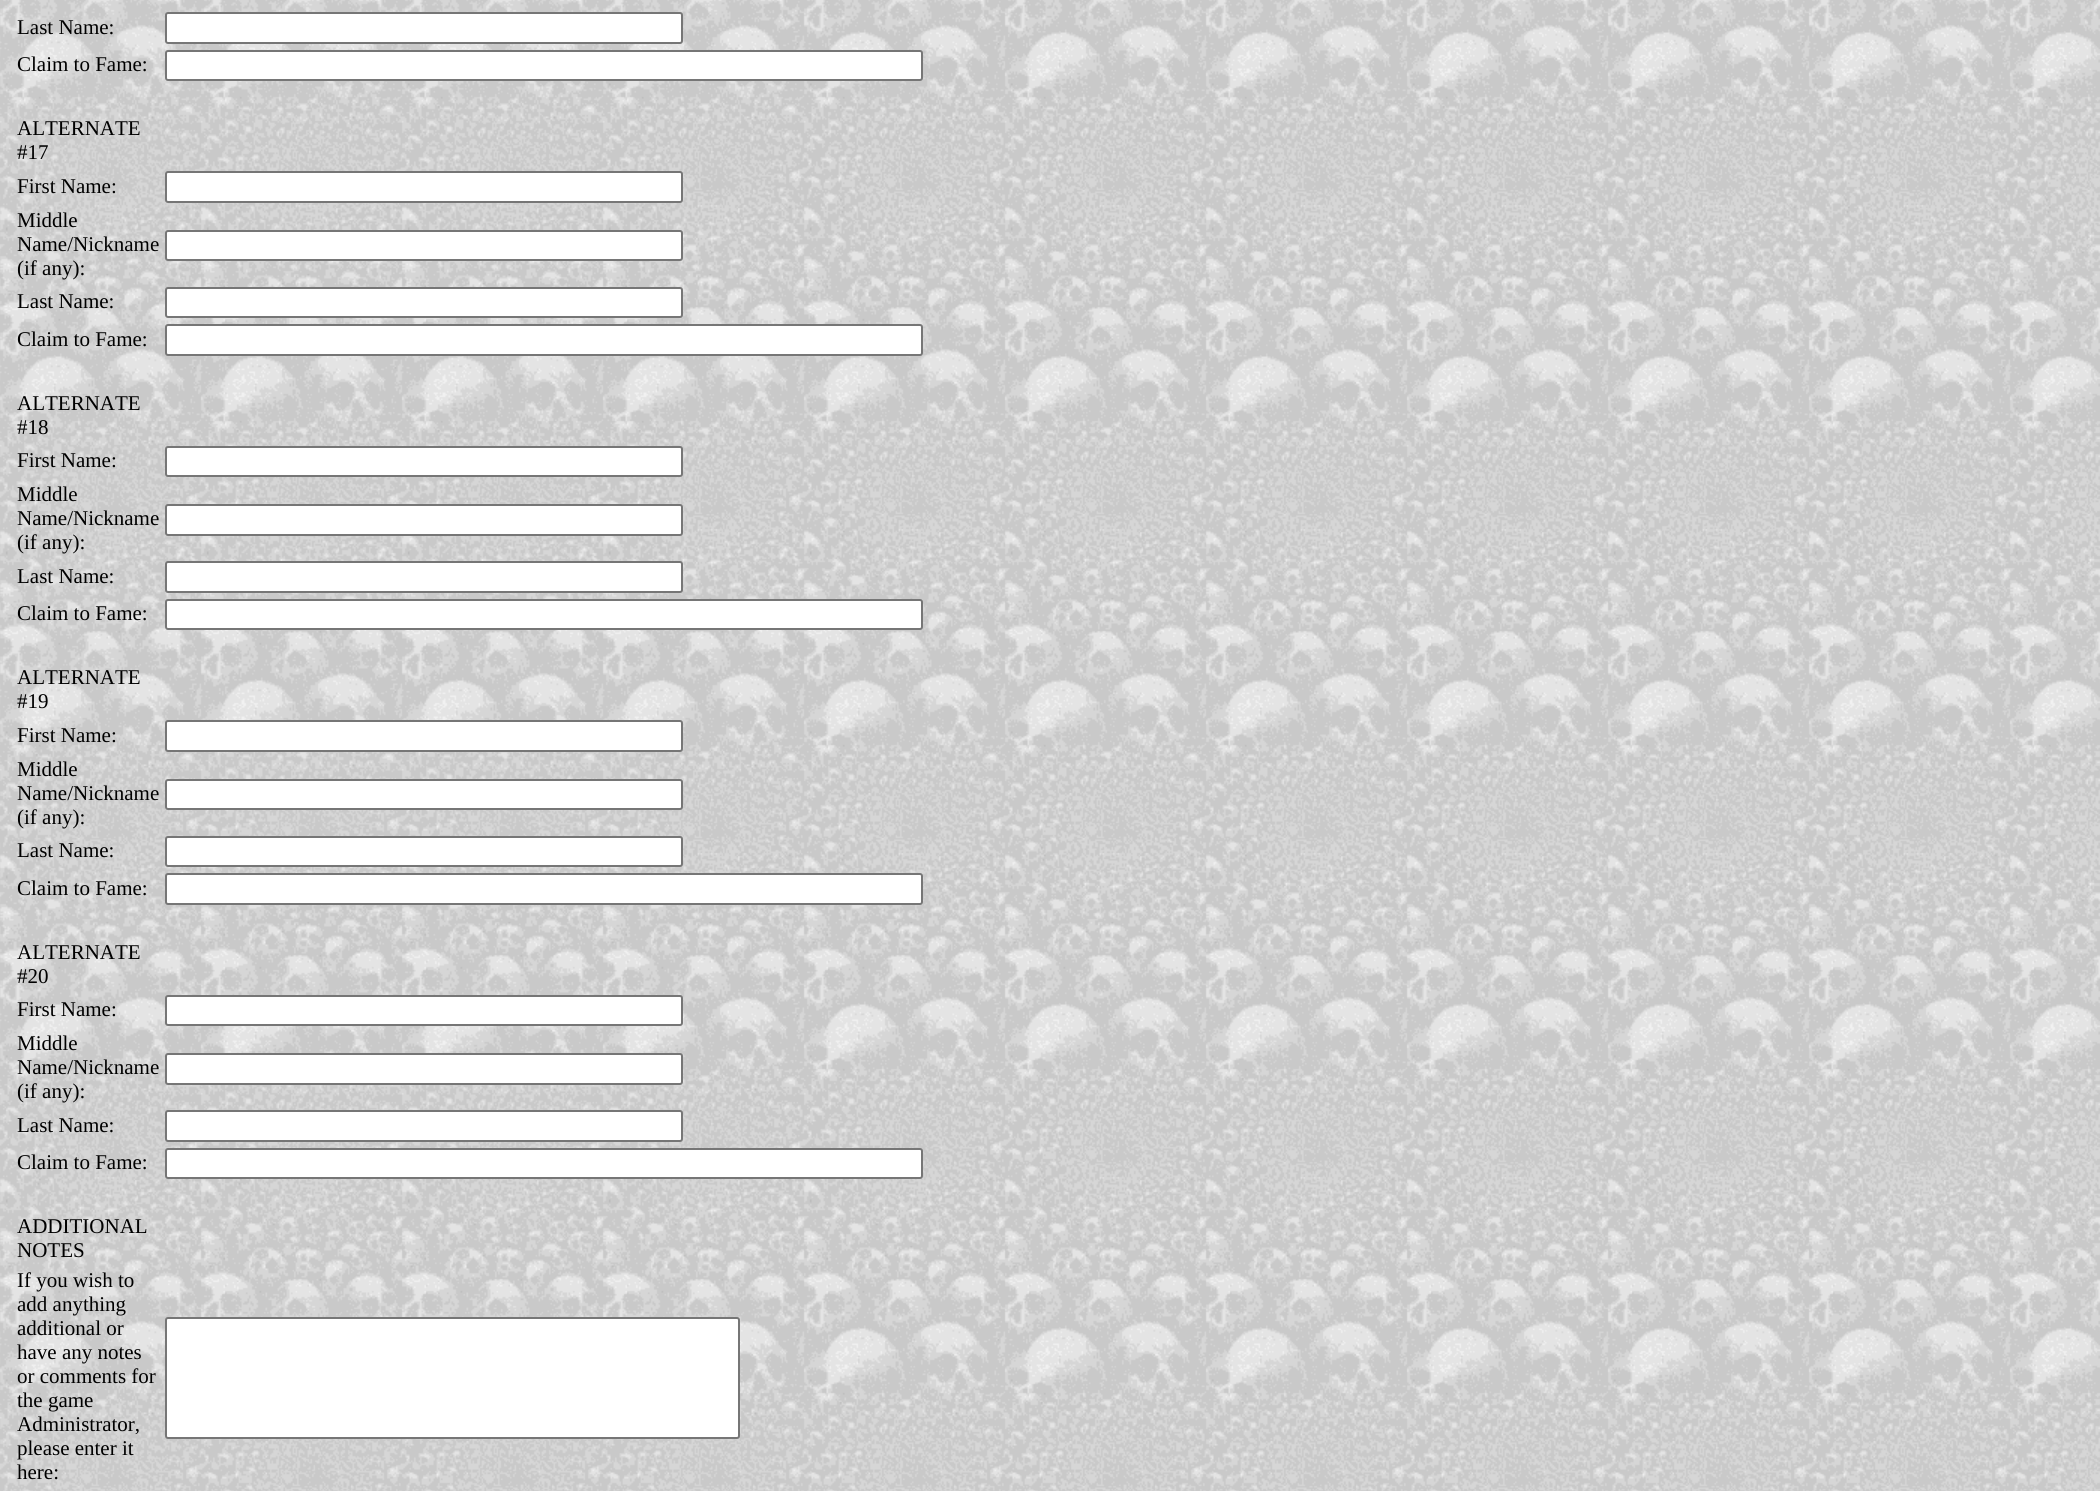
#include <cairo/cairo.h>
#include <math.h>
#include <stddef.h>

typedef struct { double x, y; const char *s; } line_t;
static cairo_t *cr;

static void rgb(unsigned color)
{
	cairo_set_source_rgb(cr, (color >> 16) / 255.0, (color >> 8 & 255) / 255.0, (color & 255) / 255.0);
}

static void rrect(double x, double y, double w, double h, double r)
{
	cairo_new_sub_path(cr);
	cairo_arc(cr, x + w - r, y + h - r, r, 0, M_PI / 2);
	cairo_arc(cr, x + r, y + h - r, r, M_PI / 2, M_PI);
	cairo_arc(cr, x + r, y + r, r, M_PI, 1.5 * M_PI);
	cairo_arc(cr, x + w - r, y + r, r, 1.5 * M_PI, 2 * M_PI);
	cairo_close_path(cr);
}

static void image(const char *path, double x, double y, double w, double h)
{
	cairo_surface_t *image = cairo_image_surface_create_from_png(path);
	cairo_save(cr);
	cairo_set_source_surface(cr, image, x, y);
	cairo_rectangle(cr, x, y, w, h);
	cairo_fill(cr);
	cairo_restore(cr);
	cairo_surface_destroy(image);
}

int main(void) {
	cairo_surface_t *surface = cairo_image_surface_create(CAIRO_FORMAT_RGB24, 2100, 1491);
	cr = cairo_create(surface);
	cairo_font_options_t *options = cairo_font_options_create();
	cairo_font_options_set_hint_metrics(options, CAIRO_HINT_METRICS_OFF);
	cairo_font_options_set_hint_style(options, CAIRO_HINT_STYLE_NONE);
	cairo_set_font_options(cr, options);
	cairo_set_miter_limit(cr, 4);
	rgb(0xffffff);
	cairo_paint(cr);
	image("img/1.png", 0, 0, 2100, 1491);
	rgb(0xffffff);
	rrect(166, 13, 516, 30, 2);
	cairo_fill_preserve(cr);
	rgb(0x767676);
	cairo_stroke(cr);
	rgb(0xffffff);
	rrect(166, 51, 756, 29, 2);
	cairo_fill_preserve(cr);
	rgb(0x767676);
	cairo_stroke(cr);
	rgb(0xffffff);
	rrect(166, 172, 516, 30, 2);
	cairo_fill_preserve(cr);
	rgb(0x767676);
	cairo_stroke(cr);
	rgb(0xffffff);
	rrect(166, 231, 516, 29, 2);
	cairo_fill_preserve(cr);
	rgb(0x767676);
	cairo_stroke(cr);
	rgb(0xffffff);
	rrect(166, 288, 516, 29, 2);
	cairo_fill_preserve(cr);
	rgb(0x767676);
	cairo_stroke(cr);
	rgb(0xffffff);
	rrect(166, 325, 756, 30, 2);
	cairo_fill_preserve(cr);
	rgb(0x767676);
	cairo_stroke(cr);
	rgb(0xffffff);
	rrect(166, 447, 516, 29, 2);
	cairo_fill_preserve(cr);
	rgb(0x767676);
	cairo_stroke(cr);
	rgb(0xffffff);
	rrect(166, 505, 516, 30, 2);
	cairo_fill_preserve(cr);
	rgb(0x767676);
	cairo_stroke(cr);
	rgb(0xffffff);
	rrect(166, 562, 516, 30, 2);
	cairo_fill_preserve(cr);
	rgb(0x767676);
	cairo_stroke(cr);
	rgb(0xffffff);
	rrect(166, 600, 756, 29, 2);
	cairo_fill_preserve(cr);
	rgb(0x767676);
	cairo_stroke(cr);
	rgb(0xffffff);
	rrect(166, 721, 516, 30, 2);
	cairo_fill_preserve(cr);
	rgb(0x767676);
	cairo_stroke(cr);
	rgb(0xffffff);
	rrect(166, 780, 516, 29, 2);
	cairo_fill_preserve(cr);
	rgb(0x767676);
	cairo_stroke(cr);
	rgb(0xffffff);
	rrect(166, 837, 516, 29, 2);
	cairo_fill_preserve(cr);
	rgb(0x767676);
	cairo_stroke(cr);
	rgb(0xffffff);
	rrect(166, 874, 756, 30, 2);
	cairo_fill_preserve(cr);
	rgb(0x767676);
	cairo_stroke(cr);
	rgb(0xffffff);
	rrect(166, 996, 516, 29, 2);
	cairo_fill_preserve(cr);
	rgb(0x767676);
	cairo_stroke(cr);
	rgb(0xffffff);
	rrect(166, 1054, 516, 30, 2);
	cairo_fill_preserve(cr);
	rgb(0x767676);
	cairo_stroke(cr);
	rgb(0xffffff);
	rrect(166, 1111, 516, 30, 2);
	cairo_fill_preserve(cr);
	rgb(0x767676);
	cairo_stroke(cr);
	rgb(0xffffff);
	rrect(166, 1149, 756, 29, 2);
	cairo_fill_preserve(cr);
	rgb(0x767676);
	cairo_stroke(cr);
	rgb(0xffffff);
	rrect(166, 1318, 573, 120, 2);
	cairo_fill_preserve(cr);
	rgb(0x767676);
	cairo_stroke(cr);
	cairo_select_font_face(cr, "Liberation Serif", CAIRO_FONT_SLANT_NORMAL, CAIRO_FONT_WEIGHT_NORMAL);
	cairo_set_font_size(cr, 21);
	rgb(0x000000);
	{
		static const line_t items[] = {
			{17, 34, "Last Name:"},
			{17, 71, "Claim to Fame:"},
			{17, 135, "ALTERNATE"},
			{17, 159, "#17"},
			{17, 193, "First Name:"},
			{17, 227, "Middle"},
			{17, 251, "Name/Nickname"},
			{17, 275, "(if any):"},
			{17, 308, "Last Name:"},
			{17, 346, "Claim to Fame:"},
			{17, 410, "ALTERNATE"},
			{17, 434, "#18"},
			{17, 467, "First Name:"},
			{17, 501, "Middle"},
			{17, 525, "Name/Nickname"},
			{17, 549, "(if any):"},
			{17, 583, "Last Name:"},
			{17, 620, "Claim to Fame:"},
			{17, 684, "ALTERNATE"},
			{17, 708, "#19"},
			{17, 742, "First Name:"},
			{17, 776, "Middle"},
			{17, 800, "Name/Nickname"},
			{17, 824, "(if any):"},
			{17, 857, "Last Name:"},
			{17, 895, "Claim to Fame:"},
			{17, 959, "ALTERNATE"},
			{17, 983, "#20"},
			{17, 1016, "First Name:"},
			{17, 1050, "Middle"},
			{17, 1074, "Name/Nickname"},
			{17, 1098, "(if any):"},
			{17, 1132, "Last Name:"},
			{17, 1169, "Claim to Fame:"},
			{17, 1233, "ADDITIONAL"},
			{17, 1257, "NOTES"},
			{17, 1287, "If you wish to"},
			{17, 1311, "add anything"},
			{17, 1335, "additional or"},
			{17, 1359, "have any notes"},
			{17, 1383, "or comments for"},
			{17, 1407, "the game"},
			{17, 1431, "Administrator,"},
			{17, 1455, "please enter it"},
			{17, 1479, "here:"},
		};
		for (size_t i = 0; i < sizeof items / sizeof *items; i++) {
			cairo_move_to(cr, items[i].x, items[i].y);
			cairo_show_text(cr, items[i].s);
		}
	}
	cairo_surface_write_to_png(surface, "page.png");
	cairo_font_options_destroy(options);
	cairo_destroy(cr);
	cairo_surface_destroy(surface);
	return 0;
}
